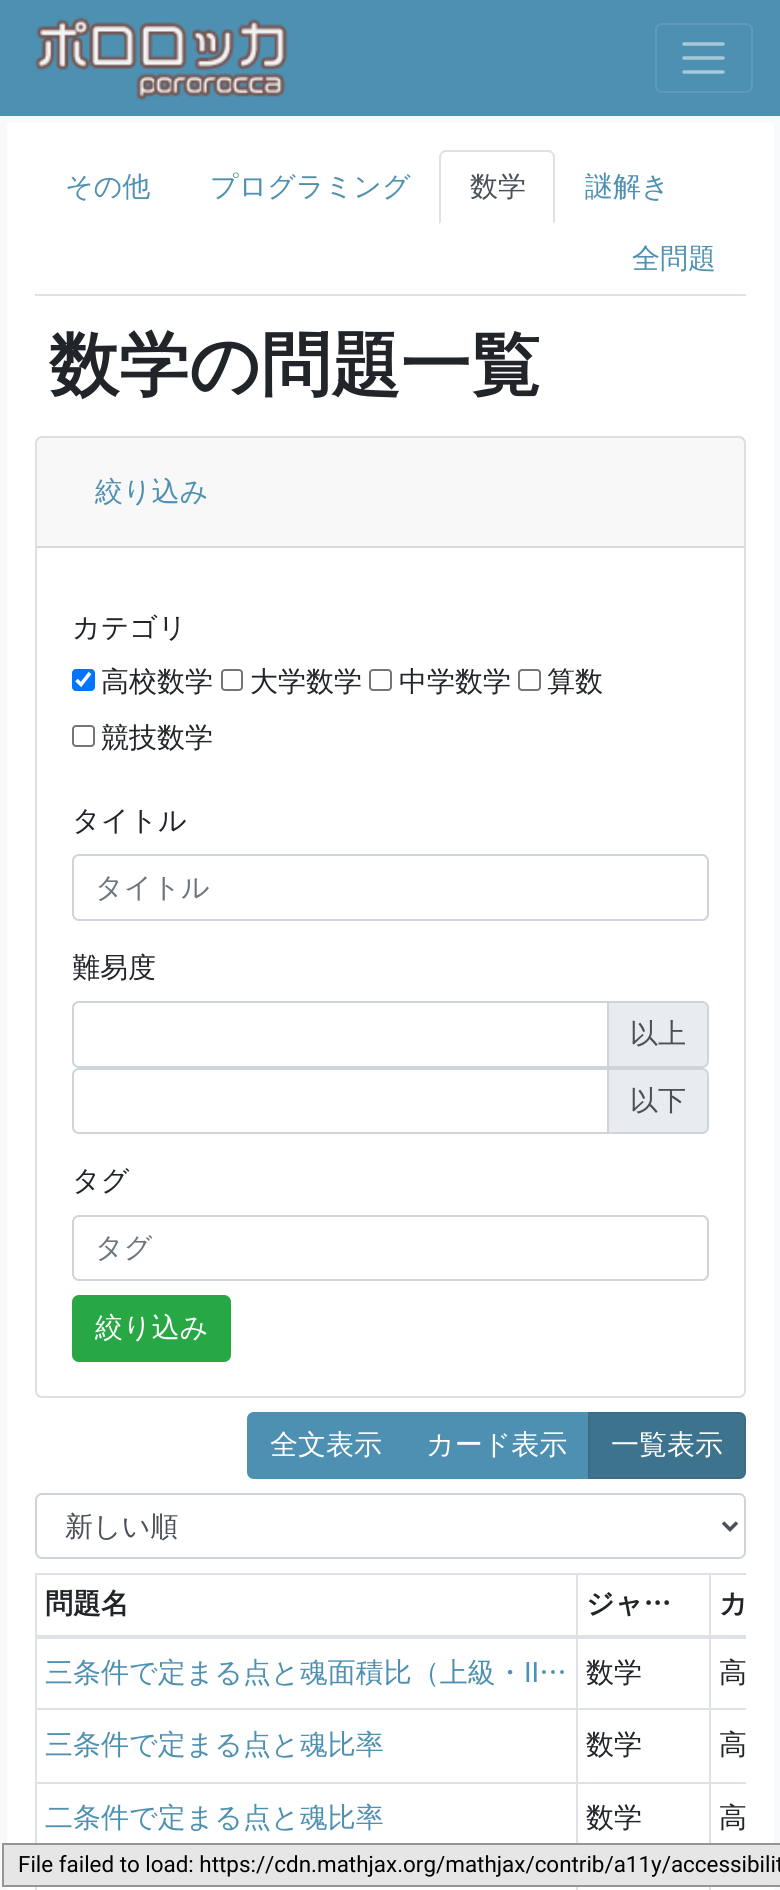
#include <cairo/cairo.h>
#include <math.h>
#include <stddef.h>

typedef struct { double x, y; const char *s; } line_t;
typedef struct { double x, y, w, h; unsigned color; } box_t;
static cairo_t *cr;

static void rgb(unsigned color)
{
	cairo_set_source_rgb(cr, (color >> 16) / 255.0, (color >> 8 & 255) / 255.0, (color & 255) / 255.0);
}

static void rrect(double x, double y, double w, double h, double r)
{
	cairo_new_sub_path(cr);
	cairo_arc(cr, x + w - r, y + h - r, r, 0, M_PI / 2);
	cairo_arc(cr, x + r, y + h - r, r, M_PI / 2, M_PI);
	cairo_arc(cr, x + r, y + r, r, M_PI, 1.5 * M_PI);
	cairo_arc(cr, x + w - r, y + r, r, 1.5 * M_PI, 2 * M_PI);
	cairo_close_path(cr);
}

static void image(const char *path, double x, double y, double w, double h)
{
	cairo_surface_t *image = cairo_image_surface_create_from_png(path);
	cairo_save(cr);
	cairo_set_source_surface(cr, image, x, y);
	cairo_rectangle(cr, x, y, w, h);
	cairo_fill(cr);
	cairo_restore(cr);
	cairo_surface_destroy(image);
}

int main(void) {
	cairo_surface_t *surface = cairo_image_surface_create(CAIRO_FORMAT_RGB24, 780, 1890);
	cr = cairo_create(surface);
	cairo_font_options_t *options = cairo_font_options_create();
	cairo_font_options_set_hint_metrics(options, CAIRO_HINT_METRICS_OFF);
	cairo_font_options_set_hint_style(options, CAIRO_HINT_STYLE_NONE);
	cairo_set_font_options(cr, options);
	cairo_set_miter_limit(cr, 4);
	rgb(0xf8f9fa);
	cairo_paint(cr);
	rgb(0x4e90b1);
	cairo_rectangle(cr, 0, 0, 780, 116);
	cairo_fill(cr);
	image("img/1.png", 34, 17, 254, 84);
	rrect(656, 24, 96, 68, 6);
	rgb(0x609bb9);
	cairo_stroke(cr);
	cairo_new_path(cr);
	cairo_move_to(cr, 684, 44);
	cairo_line_to(cr, 723, 44);
	cairo_move_to(cr, 684, 58);
	cairo_line_to(cr, 723, 58);
	cairo_move_to(cr, 684, 72);
	cairo_line_to(cr, 723, 72);
	rgb(0xa7c8d8);
	cairo_set_line_width(cr, 3.5);
	cairo_set_line_cap(cr, CAIRO_LINE_CAP_ROUND);
	cairo_stroke(cr);
	rgb(0xffffff);
	cairo_rectangle(cr, 7, 123, 767, 1767);
	cairo_fill(cr);
	rgb(0xdee2e6);
	cairo_rectangle(cr, 35, 294, 711, 2);
	cairo_fill(cr);
	cairo_new_path(cr);
	cairo_move_to(cr, 446, 152);
	cairo_curve_to(cr, 445, 152, 443, 153, 442, 154);
	cairo_line_to(cr, 441, 152);
	cairo_line_to(cr, 444, 150);
	cairo_line_to(cr, 550, 150);
	cairo_line_to(cr, 553, 152);
	cairo_line_to(cr, 552, 154);
	cairo_curve_to(cr, 551, 153, 549, 152, 548, 152);
	cairo_close_path(cr);
	cairo_fill(cr);
	cairo_new_path(cr);
	cairo_move_to(cr, 555, 156);
	cairo_line_to(cr, 555, 224);
	cairo_line_to(cr, 553, 222);
	cairo_line_to(cr, 553, 158);
	cairo_curve_to(cr, 553, 156, 552, 155, 552, 154);
	cairo_line_to(cr, 553, 152);
	cairo_close_path(cr);
	cairo_fill(cr);
	rgb(0xffffff);
	cairo_new_path(cr);
	cairo_move_to(cr, 555, 224);
	cairo_line_to(cr, 553, 222);
	cairo_line_to(cr, 441, 222);
	cairo_line_to(cr, 439, 224);
	cairo_close_path(cr);
	cairo_fill(cr);
	rgb(0xdee2e6);
	cairo_new_path(cr);
	cairo_move_to(cr, 439, 224);
	cairo_line_to(cr, 439, 156);
	cairo_line_to(cr, 441, 152);
	cairo_line_to(cr, 442, 154);
	cairo_curve_to(cr, 442, 155, 441, 156, 441, 158);
	cairo_line_to(cr, 441, 222);
	cairo_close_path(cr);
	cairo_fill(cr);
	rrect(36, 437, 709, 960, 6);
	rgb(0xdfdfdf);
	cairo_set_line_width(cr, 2);
	cairo_set_line_cap(cr, CAIRO_LINE_CAP_BUTT);
	cairo_stroke(cr);
	cairo_set_source_rgba(cr, 0, 0, 0, 0.03);
	cairo_rectangle(cr, 37, 438, 707, 108);
	cairo_fill(cr);
	rgb(0xd8d8d8);
	cairo_rectangle(cr, 37, 546, 707, 2);
	cairo_fill(cr);
	rgb(0x0075ff);
	rrect(72, 669, 23, 22, 4);
	cairo_fill(cr);
	cairo_new_path(cr);
	cairo_move_to(cr, 76.5, 680);
	cairo_line_to(cr, 81, 684.5);
	cairo_line_to(cr, 90, 673);
	rgb(0xffffff);
	cairo_set_line_width(cr, 3.6);
	cairo_stroke(cr);
	rrect(222, 670, 20, 20, 3);
	rgb(0x767676);
	cairo_set_line_width(cr, 2);
	cairo_stroke(cr);
	rrect(370, 670, 21, 20, 3);
	cairo_stroke(cr);
	rrect(519, 670, 21, 20, 3);
	cairo_stroke(cr);
	rrect(73, 726, 21, 20, 3);
	cairo_stroke(cr);
	rrect(73, 855, 635, 65, 6);
	rgb(0xced4da);
	cairo_stroke(cr);
	rgb(0xe9ecef);
	cairo_new_path(cr);
	cairo_move_to(cr, 608, 1002);
	cairo_line_to(cr, 702, 1002);
	cairo_curve_to(cr, 705.5, 1002, 708, 1004.5, 708, 1008);
	cairo_line_to(cr, 708, 1061);
	cairo_curve_to(cr, 708, 1064.5, 705.5, 1067, 702, 1067);
	cairo_line_to(cr, 608, 1067);
	cairo_close_path(cr);
	cairo_fill_preserve(cr);
	rgb(0xced4da);
	cairo_stroke(cr);
	cairo_new_path(cr);
	cairo_move_to(cr, 79, 1002);
	cairo_line_to(cr, 608, 1002);
	cairo_line_to(cr, 608, 1067);
	cairo_line_to(cr, 79, 1067);
	cairo_curve_to(cr, 75.5, 1067, 73, 1064.5, 73, 1061);
	cairo_line_to(cr, 73, 1008);
	cairo_curve_to(cr, 73, 1004.5, 75.5, 1002, 79, 1002);
	cairo_close_path(cr);
	cairo_stroke(cr);
	rgb(0xe9ecef);
	cairo_new_path(cr);
	cairo_move_to(cr, 608, 1069);
	cairo_line_to(cr, 702, 1069);
	cairo_curve_to(cr, 705.5, 1069, 708, 1071.5, 708, 1075);
	cairo_line_to(cr, 708, 1127);
	cairo_curve_to(cr, 708, 1130.5, 705.5, 1133, 702, 1133);
	cairo_line_to(cr, 608, 1133);
	cairo_close_path(cr);
	cairo_fill_preserve(cr);
	rgb(0xced4da);
	cairo_stroke(cr);
	cairo_new_path(cr);
	cairo_move_to(cr, 79, 1069);
	cairo_line_to(cr, 608, 1069);
	cairo_line_to(cr, 608, 1133);
	cairo_line_to(cr, 79, 1133);
	cairo_curve_to(cr, 75.5, 1133, 73, 1130.5, 73, 1127);
	cairo_line_to(cr, 73, 1075);
	cairo_curve_to(cr, 73, 1071.5, 75.5, 1069, 79, 1069);
	cairo_close_path(cr);
	cairo_stroke(cr);
	rrect(73, 1216, 635, 64, 6);
	cairo_stroke(cr);
	rgb(0x28a745);
	rrect(73, 1296, 157, 65, 6);
	cairo_fill_preserve(cr);
	cairo_stroke(cr);
	rgb(0x4e90b1);
	cairo_new_path(cr);
	cairo_move_to(cr, 254, 1413);
	cairo_line_to(cr, 403, 1413);
	cairo_line_to(cr, 403, 1478);
	cairo_line_to(cr, 254, 1478);
	cairo_curve_to(cr, 250.5, 1478, 248, 1475.5, 248, 1472);
	cairo_line_to(cr, 248, 1419);
	cairo_curve_to(cr, 248, 1415.5, 250.5, 1413, 254, 1413);
	cairo_close_path(cr);
	cairo_fill_preserve(cr);
	cairo_stroke(cr);
	cairo_rectangle(cr, 404, 1412, 184, 67);
	cairo_fill(cr);
	rgb(0x3e738e);
	cairo_new_path(cr);
	cairo_move_to(cr, 589, 1413);
	cairo_line_to(cr, 739, 1413);
	cairo_curve_to(cr, 742.5, 1413, 745, 1415.5, 745, 1419);
	cairo_line_to(cr, 745, 1472);
	cairo_curve_to(cr, 745, 1475.5, 742.5, 1478, 739, 1478);
	cairo_line_to(cr, 589, 1478);
	cairo_close_path(cr);
	cairo_fill_preserve(cr);
	rgb(0x3b6c85);
	cairo_stroke(cr);
	rrect(36, 1494, 709, 64, 6);
	rgb(0xced4da);
	cairo_stroke(cr);
	cairo_new_path(cr);
	cairo_move_to(cr, 723, 1522.5);
	cairo_line_to(cr, 730, 1529.5);
	cairo_line_to(cr, 737, 1522.5);
	rgb(0x495057);
	cairo_set_line_width(cr, 3.5);
	cairo_stroke(cr);
	{
		static const box_t items[] = {
			{709, 1573, 37, 2, 0xdee2e6},
			{709, 1708, 37, 2, 0xdee2e6},
			{709, 1782, 37, 2, 0xdee2e6},
			{709, 1782, 2, 61, 0xdee2e6},
			{576, 1782, 135, 2, 0xdee2e6},
			{709, 1708, 2, 75, 0xdee2e6},
			{576, 1708, 135, 2, 0xdee2e6},
			{709, 1635, 2, 75, 0xdee2e6},
			{709, 1573, 2, 63, 0xdee2e6},
			{576, 1573, 135, 2, 0xdee2e6},
			{576, 1782, 2, 61, 0xdee2e6},
			{35, 1782, 543, 2, 0xdee2e6},
			{576, 1708, 2, 75, 0xdee2e6},
			{35, 1708, 543, 2, 0xdee2e6},
			{576, 1635, 2, 75, 0xdee2e6},
			{576, 1573, 2, 63, 0xdee2e6},
			{35, 1573, 543, 2, 0xdee2e6},
			{35, 1782, 2, 61, 0xdee2e6},
			{35, 1635, 2, 148, 0xdee2e6},
			{35, 1573, 2, 63, 0xdee2e6},
			{35, 1635, 711, 4, 0xdee2e6},
			{35, 1887, 2, 3, 0xdee2e6},
			{576, 1887, 2, 3, 0xdee2e6},
			{709, 1887, 2, 3, 0xdee2e6},
		};
		for (size_t i = 0; i < sizeof items / sizeof *items; i++) {
			rgb(items[i].color);
			cairo_rectangle(cr, items[i].x, items[i].y, items[i].w, items[i].h);
			cairo_fill(cr);
		}
	}
	rgb(0xe6e6e6);
	cairo_rectangle(cr, 3, 1844, 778, 42);
	cairo_fill_preserve(cr);
	rgb(0x959595);
	cairo_set_line_width(cr, 2);
	cairo_stroke(cr);
	cairo_select_font_face(cr, "WenQuanYi Zen Hei Medium", CAIRO_FONT_SLANT_NORMAL, CAIRO_FONT_WEIGHT_NORMAL);
	cairo_set_font_size(cr, 28);
	rgb(0x4e90b1);
	cairo_move_to(cr, 65, 196);
	cairo_show_text(cr, "その他");
	cairo_move_to(cr, 210, 196);
	cairo_show_text(cr, "プログラミング");
	rgb(0x495057);
	cairo_move_to(cr, 470, 196);
	cairo_show_text(cr, "数学");
	rgb(0x4e90b1);
	cairo_move_to(cr, 585, 196);
	cairo_show_text(cr, "謎解き");
	cairo_move_to(cr, 632, 268);
	cairo_show_text(cr, "全問題");
	cairo_select_font_face(cr, "WenQuanYi Zen Hei", CAIRO_FONT_SLANT_NORMAL, CAIRO_FONT_WEIGHT_BOLD);
	cairo_set_font_size(cr, 70);
	rgb(0x212529);
	cairo_move_to(cr, 49, 389);
	cairo_show_text(cr, "数学の問題一覧");
	cairo_select_font_face(cr, "WenQuanYi Zen Hei Medium", CAIRO_FONT_SLANT_NORMAL, CAIRO_FONT_WEIGHT_NORMAL);
	cairo_set_font_size(cr, 28);
	rgb(0x4e90b1);
	cairo_move_to(cr, 95, 501);
	cairo_show_text(cr, "絞り込み");
	rgb(0x212529);
	{
		static const line_t items[] = {
			{72, 637, "カテゴリ"},
			{101, 691, "高校数学"},
			{250, 691, "大学数学"},
			{399, 691, "中学数学"},
			{547, 691, "算数"},
			{101, 747, "競技数学"},
			{72, 830, "タイトル"},
		};
		for (size_t i = 0; i < sizeof items / sizeof *items; i++) {
			cairo_move_to(cr, items[i].x, items[i].y);
			cairo_show_text(cr, items[i].s);
		}
	}
	rgb(0x6c757d);
	cairo_move_to(cr, 95, 897);
	cairo_show_text(cr, "タイトル");
	rgb(0x212529);
	cairo_move_to(cr, 72, 977);
	cairo_show_text(cr, "難易度");
	rgb(0x495057);
	cairo_move_to(cr, 630, 1043);
	cairo_show_text(cr, "以上");
	cairo_move_to(cr, 630, 1110);
	cairo_show_text(cr, "以下");
	rgb(0x212529);
	cairo_move_to(cr, 72, 1190);
	cairo_show_text(cr, "タグ");
	rgb(0x6c757d);
	cairo_move_to(cr, 95, 1257);
	cairo_show_text(cr, "タグ");
	rgb(0xffffff);
	{
		static const line_t items[] = {
			{95, 1337, "絞り込み"},
			{270, 1454, "全文表示"},
			{426, 1454, "カード表示"},
			{611, 1454, "一覧表示"},
		};
		for (size_t i = 0; i < sizeof items / sizeof *items; i++) {
			cairo_move_to(cr, items[i].x, items[i].y);
			cairo_show_text(cr, items[i].s);
		}
	}
	rgb(0x495057);
	cairo_move_to(cr, 65, 1536);
	cairo_show_text(cr, "新しい順");
	cairo_select_font_face(cr, "WenQuanYi Zen Hei", CAIRO_FONT_SLANT_NORMAL, CAIRO_FONT_WEIGHT_BOLD);
	rgb(0x212529);
	{
		static const line_t items[] = {
			{45, 1613, "問題名"},
			{586, 1613, "ジャ…"},
			{719, 1613, "カ"},
		};
		for (size_t i = 0; i < sizeof items / sizeof *items; i++) {
			cairo_move_to(cr, items[i].x, items[i].y);
			cairo_show_text(cr, items[i].s);
		}
	}
	cairo_select_font_face(cr, "WenQuanYi Zen Hei Medium", CAIRO_FONT_SLANT_NORMAL, CAIRO_FONT_WEIGHT_NORMAL);
	rgb(0x4e90b1);
	cairo_move_to(cr, 45, 1682);
	cairo_show_text(cr, "三条件で定まる点と魂面積比（上級・");
	cairo_select_font_face(cr, "Roboto", CAIRO_FONT_SLANT_NORMAL, CAIRO_FONT_WEIGHT_NORMAL);
	cairo_move_to(cr, 524, 1682);
	cairo_show_text(cr, "II");
	cairo_select_font_face(cr, "WenQuanYi Zen Hei Medium", CAIRO_FONT_SLANT_NORMAL, CAIRO_FONT_WEIGHT_NORMAL);
	cairo_move_to(cr, 539, 1682);
	cairo_show_text(cr, "…");
	rgb(0x212529);
	cairo_move_to(cr, 586, 1682);
	cairo_show_text(cr, "数学");
	cairo_move_to(cr, 719, 1682);
	cairo_show_text(cr, "高");
	rgb(0x4e90b1);
	cairo_move_to(cr, 45, 1754);
	cairo_show_text(cr, "三条件で定まる点と魂比率");
	rgb(0x212529);
	cairo_move_to(cr, 586, 1754);
	cairo_show_text(cr, "数学");
	cairo_move_to(cr, 719, 1754);
	cairo_show_text(cr, "高");
	rgb(0x4e90b1);
	cairo_move_to(cr, 45, 1827);
	cairo_show_text(cr, "二条件で定まる点と魂比率");
	rgb(0x212529);
	cairo_move_to(cr, 586, 1827);
	cairo_show_text(cr, "数学");
	cairo_move_to(cr, 719, 1827);
	cairo_show_text(cr, "高");
	cairo_select_font_face(cr, "Roboto", CAIRO_FONT_SLANT_NORMAL, CAIRO_FONT_WEIGHT_NORMAL);
	cairo_set_font_size(cr, 22.4);
	rgb(0x000000);
	cairo_move_to(cr, 18, 1872);
	cairo_show_text(cr, "File failed to load: https://cdn.mathjax.org/mathjax/contrib/a11y/accessibilit");
	cairo_surface_write_to_png(surface, "page.png");
	cairo_font_options_destroy(options);
	cairo_destroy(cr);
	cairo_surface_destroy(surface);
	return 0;
}
